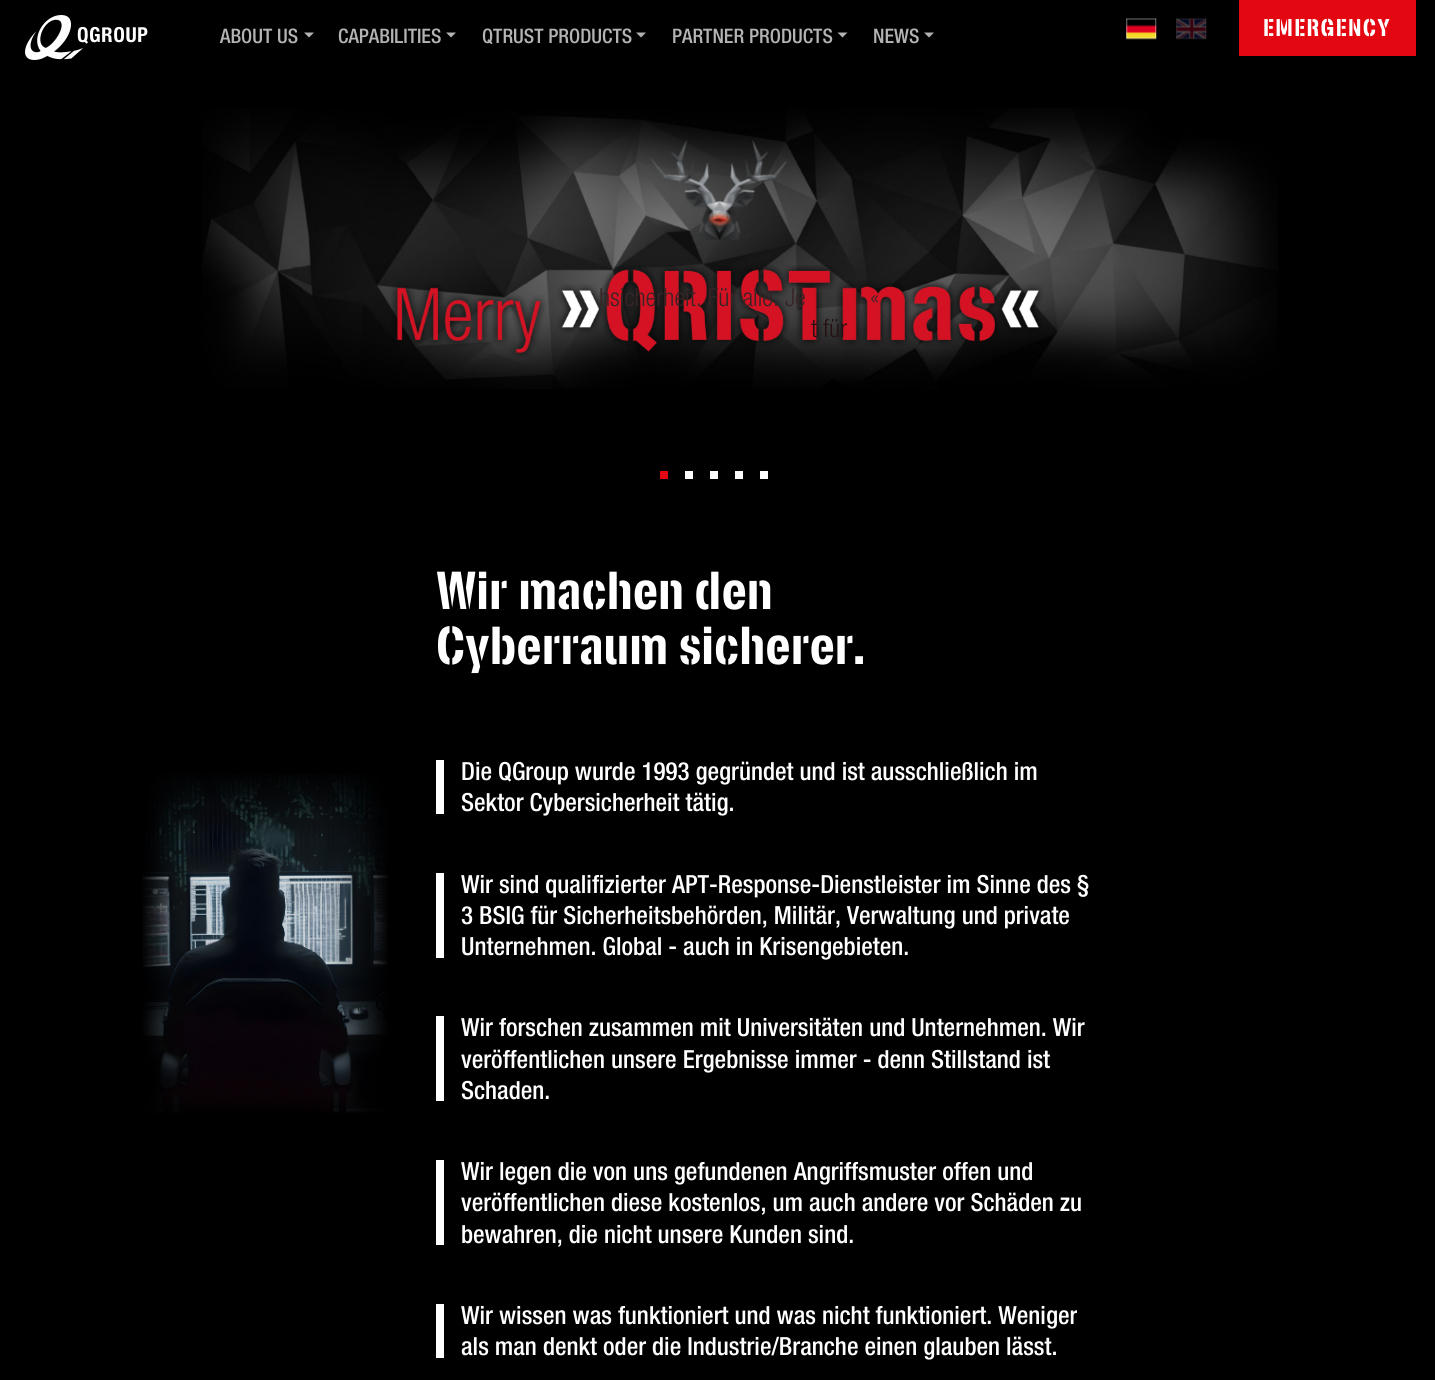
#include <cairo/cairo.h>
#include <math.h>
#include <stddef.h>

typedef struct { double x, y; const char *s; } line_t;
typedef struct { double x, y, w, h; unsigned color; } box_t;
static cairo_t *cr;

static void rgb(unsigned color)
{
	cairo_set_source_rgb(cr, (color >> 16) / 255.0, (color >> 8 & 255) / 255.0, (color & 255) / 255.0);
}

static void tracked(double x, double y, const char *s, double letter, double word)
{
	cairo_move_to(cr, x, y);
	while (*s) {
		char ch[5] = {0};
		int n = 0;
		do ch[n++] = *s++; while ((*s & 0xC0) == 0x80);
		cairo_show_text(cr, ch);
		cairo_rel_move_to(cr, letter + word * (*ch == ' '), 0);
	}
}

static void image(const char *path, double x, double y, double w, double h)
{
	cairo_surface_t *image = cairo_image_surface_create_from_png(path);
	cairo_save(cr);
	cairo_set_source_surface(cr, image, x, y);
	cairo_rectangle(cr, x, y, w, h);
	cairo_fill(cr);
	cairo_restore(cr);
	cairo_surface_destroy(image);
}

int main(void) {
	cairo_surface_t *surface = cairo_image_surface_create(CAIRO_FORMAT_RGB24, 1435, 1380);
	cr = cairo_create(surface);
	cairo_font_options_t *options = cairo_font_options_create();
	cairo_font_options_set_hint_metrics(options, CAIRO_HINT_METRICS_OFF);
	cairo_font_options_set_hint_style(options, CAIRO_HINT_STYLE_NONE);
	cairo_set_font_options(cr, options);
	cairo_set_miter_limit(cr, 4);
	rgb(0x000000);
	cairo_paint(cr);
	image("img/1.png", 25, 15, 123, 45);
	rgb(0xb3b3b3);
	cairo_new_path(cr);
	cairo_move_to(cr, 304, 32.5);
	cairo_line_to(cr, 314, 32.5);
	cairo_line_to(cr, 309, 37.5);
	cairo_close_path(cr);
	cairo_fill(cr);
	cairo_new_path(cr);
	cairo_move_to(cr, 446, 32.5);
	cairo_line_to(cr, 456, 32.5);
	cairo_line_to(cr, 451, 37.5);
	cairo_close_path(cr);
	cairo_fill(cr);
	cairo_new_path(cr);
	cairo_move_to(cr, 636, 32.5);
	cairo_line_to(cr, 646, 32.5);
	cairo_line_to(cr, 641, 37.5);
	cairo_close_path(cr);
	cairo_fill(cr);
	cairo_new_path(cr);
	cairo_move_to(cr, 837.5, 32.5);
	cairo_line_to(cr, 847.5, 32.5);
	cairo_line_to(cr, 842.5, 37.5);
	cairo_close_path(cr);
	cairo_fill(cr);
	cairo_new_path(cr);
	cairo_move_to(cr, 924, 32.5);
	cairo_line_to(cr, 934, 32.5);
	cairo_line_to(cr, 929, 37.5);
	cairo_close_path(cr);
	cairo_fill(cr);
	image("img/2.png", 1126, 18, 31, 22);
	image("img/3.png", 1176, 18, 31, 22);
	rgb(0xe30711);
	cairo_rectangle(cr, 1239, 0, 177, 56);
	cairo_fill(cr);
	image("img/4.png", 202, 108, 1076, 281);
	image("img/5.png", 649, 140, 138, 100);
	image("img/6.png", 391, 265, 652, 92);
	{
		static const box_t items[] = {
			{660, 471, 8, 8, 0xe30711},
			{685, 471, 8, 8, 0xffffff},
			{710, 471, 8, 8, 0xffffff},
			{735, 471, 8, 8, 0xffffff},
			{760, 471, 8, 8, 0xffffff},
		};
		for (size_t i = 0; i < sizeof items / sizeof *items; i++) {
			rgb(items[i].color);
			cairo_rectangle(cr, items[i].x, items[i].y, items[i].w, items[i].h);
			cairo_fill(cr);
		}
	}
	image("img/7.png", 142, 773, 246, 340);
	{
		static const box_t items[] = {
			{436, 760, 8, 54, 0xffffff},
			{436, 873, 8, 85, 0xffffff},
			{436, 1016, 8, 85, 0xffffff},
			{436, 1160, 8, 85, 0xffffff},
			{436, 1304, 8, 54, 0xffffff},
		};
		for (size_t i = 0; i < sizeof items / sizeof *items; i++) {
			rgb(items[i].color);
			cairo_rectangle(cr, items[i].x, items[i].y, items[i].w, items[i].h);
			cairo_fill(cr);
		}
	}
	cairo_select_font_face(cr, "Helvetica Neue Medium", CAIRO_FONT_SLANT_NORMAL, CAIRO_FONT_WEIGHT_NORMAL);
	cairo_set_font_size(cr, 20);
	rgb(0xb3b3b3);
	{
		static const line_t items[] = {
			{220, 43, "ABOUT US"},
			{338, 43, "CAPABILITIES"},
			{482, 43, "QTRUST PRODUCTS"},
			{672, 43, "PARTNER PRODUCTS"},
			{873, 43, "NEWS"},
		};
		for (size_t i = 0; i < sizeof items / sizeof *items; i++) {
			cairo_move_to(cr, items[i].x, items[i].y);
			cairo_show_text(cr, items[i].s);
		}
	}
	cairo_select_font_face(cr, "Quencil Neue", CAIRO_FONT_SLANT_NORMAL, CAIRO_FONT_WEIGHT_NORMAL);
	cairo_set_font_size(cr, 25);
	rgb(0xffffff);
	tracked(1263, 36, "EMERGENCY", 1.25, 0);
	cairo_select_font_face(cr, "Helvetica Neue Light", CAIRO_FONT_SLANT_NORMAL, CAIRO_FONT_WEIGHT_NORMAL);
	rgb(0x382425);
	cairo_move_to(cr, 599, 306);
	cairo_show_text(cr, "hsicherheit. Für alle. Je");
	cairo_move_to(cr, 870, 306);
	cairo_show_text(cr, "«");
	rgb(0x241213);
	cairo_move_to(cr, 811, 337);
	cairo_show_text(cr, "t für");
	cairo_select_font_face(cr, "Quencil Neue", CAIRO_FONT_SLANT_NORMAL, CAIRO_FONT_WEIGHT_NORMAL);
	cairo_set_font_size(cr, 55);
	rgb(0xffffff);
	cairo_move_to(cr, 436, 609);
	cairo_show_text(cr, "Wir machen den");
	cairo_move_to(cr, 436, 664);
	cairo_show_text(cr, "Cyberraum sicherer.");
	cairo_select_font_face(cr, "Helvetica Neue Medium", CAIRO_FONT_SLANT_NORMAL, CAIRO_FONT_WEIGHT_NORMAL);
	cairo_set_font_size(cr, 25);
	{
		static const line_t items[] = {
			{461, 780, "Die QGroup wurde 1993 gegründet und ist ausschließlich im"},
			{461, 811, "Sektor Cybersicherheit tätig."},
			{461, 893, "Wir sind qualifizierter APT-Response-Dienstleister im Sinne des §"},
			{461, 924, "3 BSIG für Sicherheitsbehörden, Militär, Verwaltung und private"},
			{461, 955, "Unternehmen. Global - auch in Krisengebieten."},
			{461, 1036, "Wir forschen zusammen mit Universitäten und Unternehmen. Wir"},
			{461, 1068, "veröffentlichen unsere Ergebnisse immer - denn Stillstand ist"},
			{461, 1099, "Schaden."},
			{461, 1180, "Wir legen die von uns gefundenen Angriffsmuster offen und"},
			{461, 1211, "veröffentlichen diese kostenlos, um auch andere vor Schäden zu"},
			{461, 1243, "bewahren, die nicht unsere Kunden sind."},
			{461, 1324, "Wir wissen was funktioniert und was nicht funktioniert. Weniger"},
			{461, 1355, "als man denkt oder die Industrie/Branche einen glauben lässt."},
		};
		for (size_t i = 0; i < sizeof items / sizeof *items; i++) {
			cairo_move_to(cr, items[i].x, items[i].y);
			cairo_show_text(cr, items[i].s);
		}
	}
	cairo_surface_write_to_png(surface, "page.png");
	cairo_font_options_destroy(options);
	cairo_destroy(cr);
	cairo_surface_destroy(surface);
	return 0;
}
